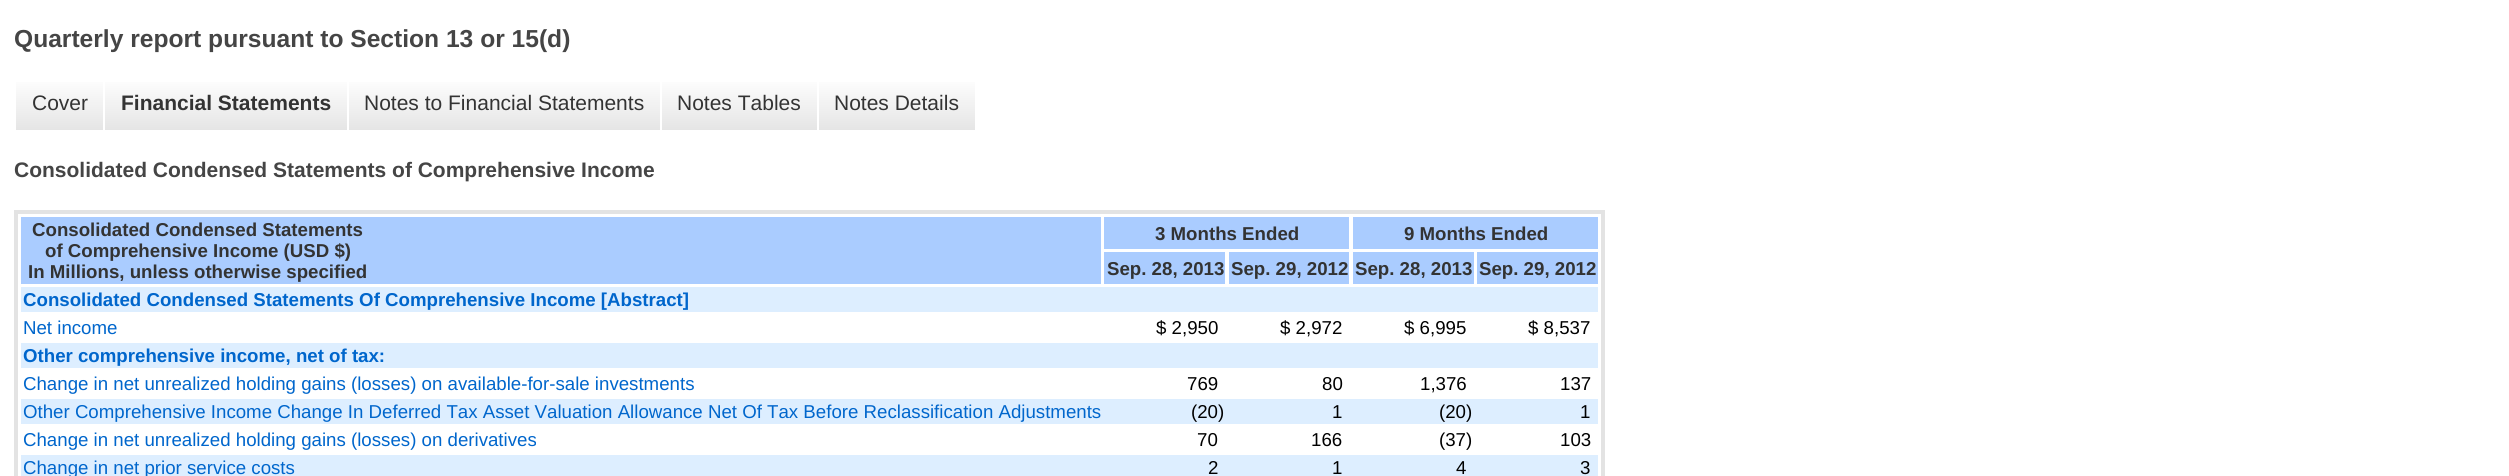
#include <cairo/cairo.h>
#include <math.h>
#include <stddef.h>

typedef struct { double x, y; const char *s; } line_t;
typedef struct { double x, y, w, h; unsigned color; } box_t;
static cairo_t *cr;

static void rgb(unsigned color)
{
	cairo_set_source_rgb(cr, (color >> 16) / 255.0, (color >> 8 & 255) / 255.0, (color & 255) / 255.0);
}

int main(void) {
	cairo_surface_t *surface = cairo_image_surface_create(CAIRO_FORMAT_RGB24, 2509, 476);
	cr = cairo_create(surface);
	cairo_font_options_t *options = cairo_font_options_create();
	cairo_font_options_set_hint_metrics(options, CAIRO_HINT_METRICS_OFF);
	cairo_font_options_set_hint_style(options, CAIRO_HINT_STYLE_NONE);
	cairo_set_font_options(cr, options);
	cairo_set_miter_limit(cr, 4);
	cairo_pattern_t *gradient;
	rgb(0xffffff);
	cairo_paint(cr);
	gradient = cairo_pattern_create_linear(60, 77, 60, 130);
	cairo_pattern_add_color_stop_rgba(gradient, 0, 1, 1, 1, 1);
	cairo_pattern_add_color_stop_rgba(gradient, 1, 0.898, 0.898, 0.898, 1);
	cairo_set_source(cr, gradient);
	cairo_pattern_destroy(gradient);
	cairo_rectangle(cr, 16, 82, 87, 48);
	cairo_fill(cr);
	gradient = cairo_pattern_create_linear(226, 77, 226, 130);
	cairo_pattern_add_color_stop_rgba(gradient, 0, 1, 1, 1, 1);
	cairo_pattern_add_color_stop_rgba(gradient, 1, 0.898, 0.898, 0.898, 1);
	cairo_set_source(cr, gradient);
	cairo_pattern_destroy(gradient);
	cairo_rectangle(cr, 105, 82, 242, 48);
	cairo_fill(cr);
	gradient = cairo_pattern_create_linear(504, 77, 504, 130);
	cairo_pattern_add_color_stop_rgba(gradient, 0, 1, 1, 1, 1);
	cairo_pattern_add_color_stop_rgba(gradient, 1, 0.898, 0.898, 0.898, 1);
	cairo_set_source(cr, gradient);
	cairo_pattern_destroy(gradient);
	cairo_rectangle(cr, 349, 82, 311, 48);
	cairo_fill(cr);
	gradient = cairo_pattern_create_linear(739, 77, 739, 130);
	cairo_pattern_add_color_stop_rgba(gradient, 0, 1, 1, 1, 1);
	cairo_pattern_add_color_stop_rgba(gradient, 1, 0.898, 0.898, 0.898, 1);
	cairo_set_source(cr, gradient);
	cairo_pattern_destroy(gradient);
	cairo_rectangle(cr, 662, 82, 155, 48);
	cairo_fill(cr);
	gradient = cairo_pattern_create_linear(897, 77, 897, 130);
	cairo_pattern_add_color_stop_rgba(gradient, 0, 1, 1, 1, 1);
	cairo_pattern_add_color_stop_rgba(gradient, 1, 0.898, 0.898, 0.898, 1);
	cairo_set_source(cr, gradient);
	cairo_pattern_destroy(gradient);
	cairo_rectangle(cr, 819, 82, 156, 48);
	cairo_fill(cr);
	cairo_rectangle(cr, 16, 212, 1587, 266);
	rgb(0xe3e3e3);
	cairo_set_line_width(cr, 4);
	cairo_stroke(cr);
	{
		static const box_t items[] = {
			{21, 217, 1080, 67, 0xaaccff},
			{1104, 217, 245, 32, 0xaaccff},
			{1353, 217, 245, 32, 0xaaccff},
			{1104, 252, 121, 32, 0xaaccff},
			{1229, 252, 120, 32, 0xaaccff},
			{1353, 252, 121, 32, 0xaaccff},
			{1477, 252, 121, 32, 0xaaccff},
			{21, 287, 1577, 25, 0xddeeff},
			{21, 343, 1577, 25, 0xddeeff},
			{21, 399, 1577, 25, 0xddeeff},
			{21, 455, 1577, 21, 0xddeeff},
		};
		for (size_t i = 0; i < sizeof items / sizeof *items; i++) {
			rgb(items[i].color);
			cairo_rectangle(cr, items[i].x, items[i].y, items[i].w, items[i].h);
			cairo_fill(cr);
		}
	}
	cairo_select_font_face(cr, "Liberation Sans", CAIRO_FONT_SLANT_NORMAL, CAIRO_FONT_WEIGHT_BOLD);
	cairo_set_font_size(cr, 24.6);
	rgb(0x454545);
	cairo_move_to(cr, 14, 47);
	cairo_show_text(cr, "Quarterly report pursuant to Section 13 or 15(d)");
	cairo_select_font_face(cr, "Liberation Sans", CAIRO_FONT_SLANT_NORMAL, CAIRO_FONT_WEIGHT_NORMAL);
	cairo_set_font_size(cr, 21);
	rgb(0x333333);
	cairo_move_to(cr, 32, 110);
	cairo_show_text(cr, "Cover");
	cairo_select_font_face(cr, "Liberation Sans", CAIRO_FONT_SLANT_NORMAL, CAIRO_FONT_WEIGHT_BOLD);
	cairo_move_to(cr, 121, 110);
	cairo_show_text(cr, "Financial Statements");
	cairo_select_font_face(cr, "Liberation Sans", CAIRO_FONT_SLANT_NORMAL, CAIRO_FONT_WEIGHT_NORMAL);
	{
		static const line_t items[] = {
			{364, 110, "Notes to Financial Statements"},
			{677, 110, "Notes Tables"},
			{834, 110, "Notes Details"},
		};
		for (size_t i = 0; i < sizeof items / sizeof *items; i++) {
			cairo_move_to(cr, items[i].x, items[i].y);
			cairo_show_text(cr, items[i].s);
		}
	}
	cairo_select_font_face(cr, "Liberation Sans", CAIRO_FONT_SLANT_NORMAL, CAIRO_FONT_WEIGHT_BOLD);
	rgb(0x454545);
	cairo_move_to(cr, 14, 177);
	cairo_show_text(cr, "Consolidated Condensed Statements of Comprehensive Income");
	cairo_set_font_size(cr, 18.67);
	rgb(0x333333);
	{
		static const line_t items[] = {
			{32, 236, "Consolidated Condensed Statements"},
			{45, 257, "of Comprehensive Income (USD $)"},
			{28, 278, "In Millions, unless otherwise specified"},
			{1155, 240, "3 Months Ended"},
			{1404, 240, "9 Months Ended"},
			{1107, 275, "Sep. 28, 2013"},
			{1231, 275, "Sep. 29, 2012"},
			{1355, 275, "Sep. 28, 2013"},
			{1479, 275, "Sep. 29, 2012"},
		};
		for (size_t i = 0; i < sizeof items / sizeof *items; i++) {
			cairo_move_to(cr, items[i].x, items[i].y);
			cairo_show_text(cr, items[i].s);
		}
	}
	rgb(0x0066cc);
	cairo_move_to(cr, 23, 306);
	cairo_show_text(cr, "Consolidated Condensed Statements Of Comprehensive Income [Abstract]");
	cairo_select_font_face(cr, "Liberation Sans", CAIRO_FONT_SLANT_NORMAL, CAIRO_FONT_WEIGHT_NORMAL);
	cairo_move_to(cr, 23, 334);
	cairo_show_text(cr, "Net income");
	rgb(0x000000);
	{
		static const line_t items[] = {
			{1156, 334, "$ 2,950"},
			{1280, 334, "$ 2,972"},
			{1404, 334, "$ 6,995"},
			{1528, 334, "$ 8,537"},
		};
		for (size_t i = 0; i < sizeof items / sizeof *items; i++) {
			cairo_move_to(cr, items[i].x, items[i].y);
			cairo_show_text(cr, items[i].s);
		}
	}
	cairo_select_font_face(cr, "Liberation Sans", CAIRO_FONT_SLANT_NORMAL, CAIRO_FONT_WEIGHT_BOLD);
	rgb(0x0066cc);
	cairo_move_to(cr, 23, 362);
	cairo_show_text(cr, "Other comprehensive income, net of tax:");
	cairo_select_font_face(cr, "Liberation Sans", CAIRO_FONT_SLANT_NORMAL, CAIRO_FONT_WEIGHT_NORMAL);
	cairo_move_to(cr, 23, 390);
	cairo_show_text(cr, "Change in net unrealized holding gains (losses) on available-for-sale investments");
	rgb(0x000000);
	{
		static const line_t items[] = {
			{1187, 390, "769"},
			{1322, 390, "80"},
			{1420, 390, "1,376"},
			{1560, 390, "137"},
		};
		for (size_t i = 0; i < sizeof items / sizeof *items; i++) {
			cairo_move_to(cr, items[i].x, items[i].y);
			cairo_show_text(cr, items[i].s);
		}
	}
	rgb(0x0066cc);
	cairo_move_to(cr, 23, 418);
	cairo_show_text(cr, "Other Comprehensive Income Change In Deferred Tax Asset Valuation Allowance Net Of Tax Before Reclassification Adjustments");
	rgb(0x000000);
	{
		static const line_t items[] = {
			{1191, 418, "(20)"},
			{1332, 418, "1"},
			{1439, 418, "(20)"},
			{1580, 418, "1"},
		};
		for (size_t i = 0; i < sizeof items / sizeof *items; i++) {
			cairo_move_to(cr, items[i].x, items[i].y);
			cairo_show_text(cr, items[i].s);
		}
	}
	rgb(0x0066cc);
	cairo_move_to(cr, 23, 446);
	cairo_show_text(cr, "Change in net unrealized holding gains (losses) on derivatives");
	rgb(0x000000);
	{
		static const line_t items[] = {
			{1197, 446, "70"},
			{1311, 446, "166"},
			{1439, 446, "(37)"},
			{1560, 446, "103"},
		};
		for (size_t i = 0; i < sizeof items / sizeof *items; i++) {
			cairo_move_to(cr, items[i].x, items[i].y);
			cairo_show_text(cr, items[i].s);
		}
	}
	rgb(0x0066cc);
	cairo_move_to(cr, 23, 474);
	cairo_show_text(cr, "Change in net prior service costs");
	rgb(0x000000);
	{
		static const line_t items[] = {
			{1208, 474, "2"},
			{1332, 474, "1"},
			{1456, 474, "4"},
			{1580, 474, "3"},
		};
		for (size_t i = 0; i < sizeof items / sizeof *items; i++) {
			cairo_move_to(cr, items[i].x, items[i].y);
			cairo_show_text(cr, items[i].s);
		}
	}
	cairo_surface_write_to_png(surface, "page.png");
	cairo_font_options_destroy(options);
	cairo_destroy(cr);
	cairo_surface_destroy(surface);
	return 0;
}
